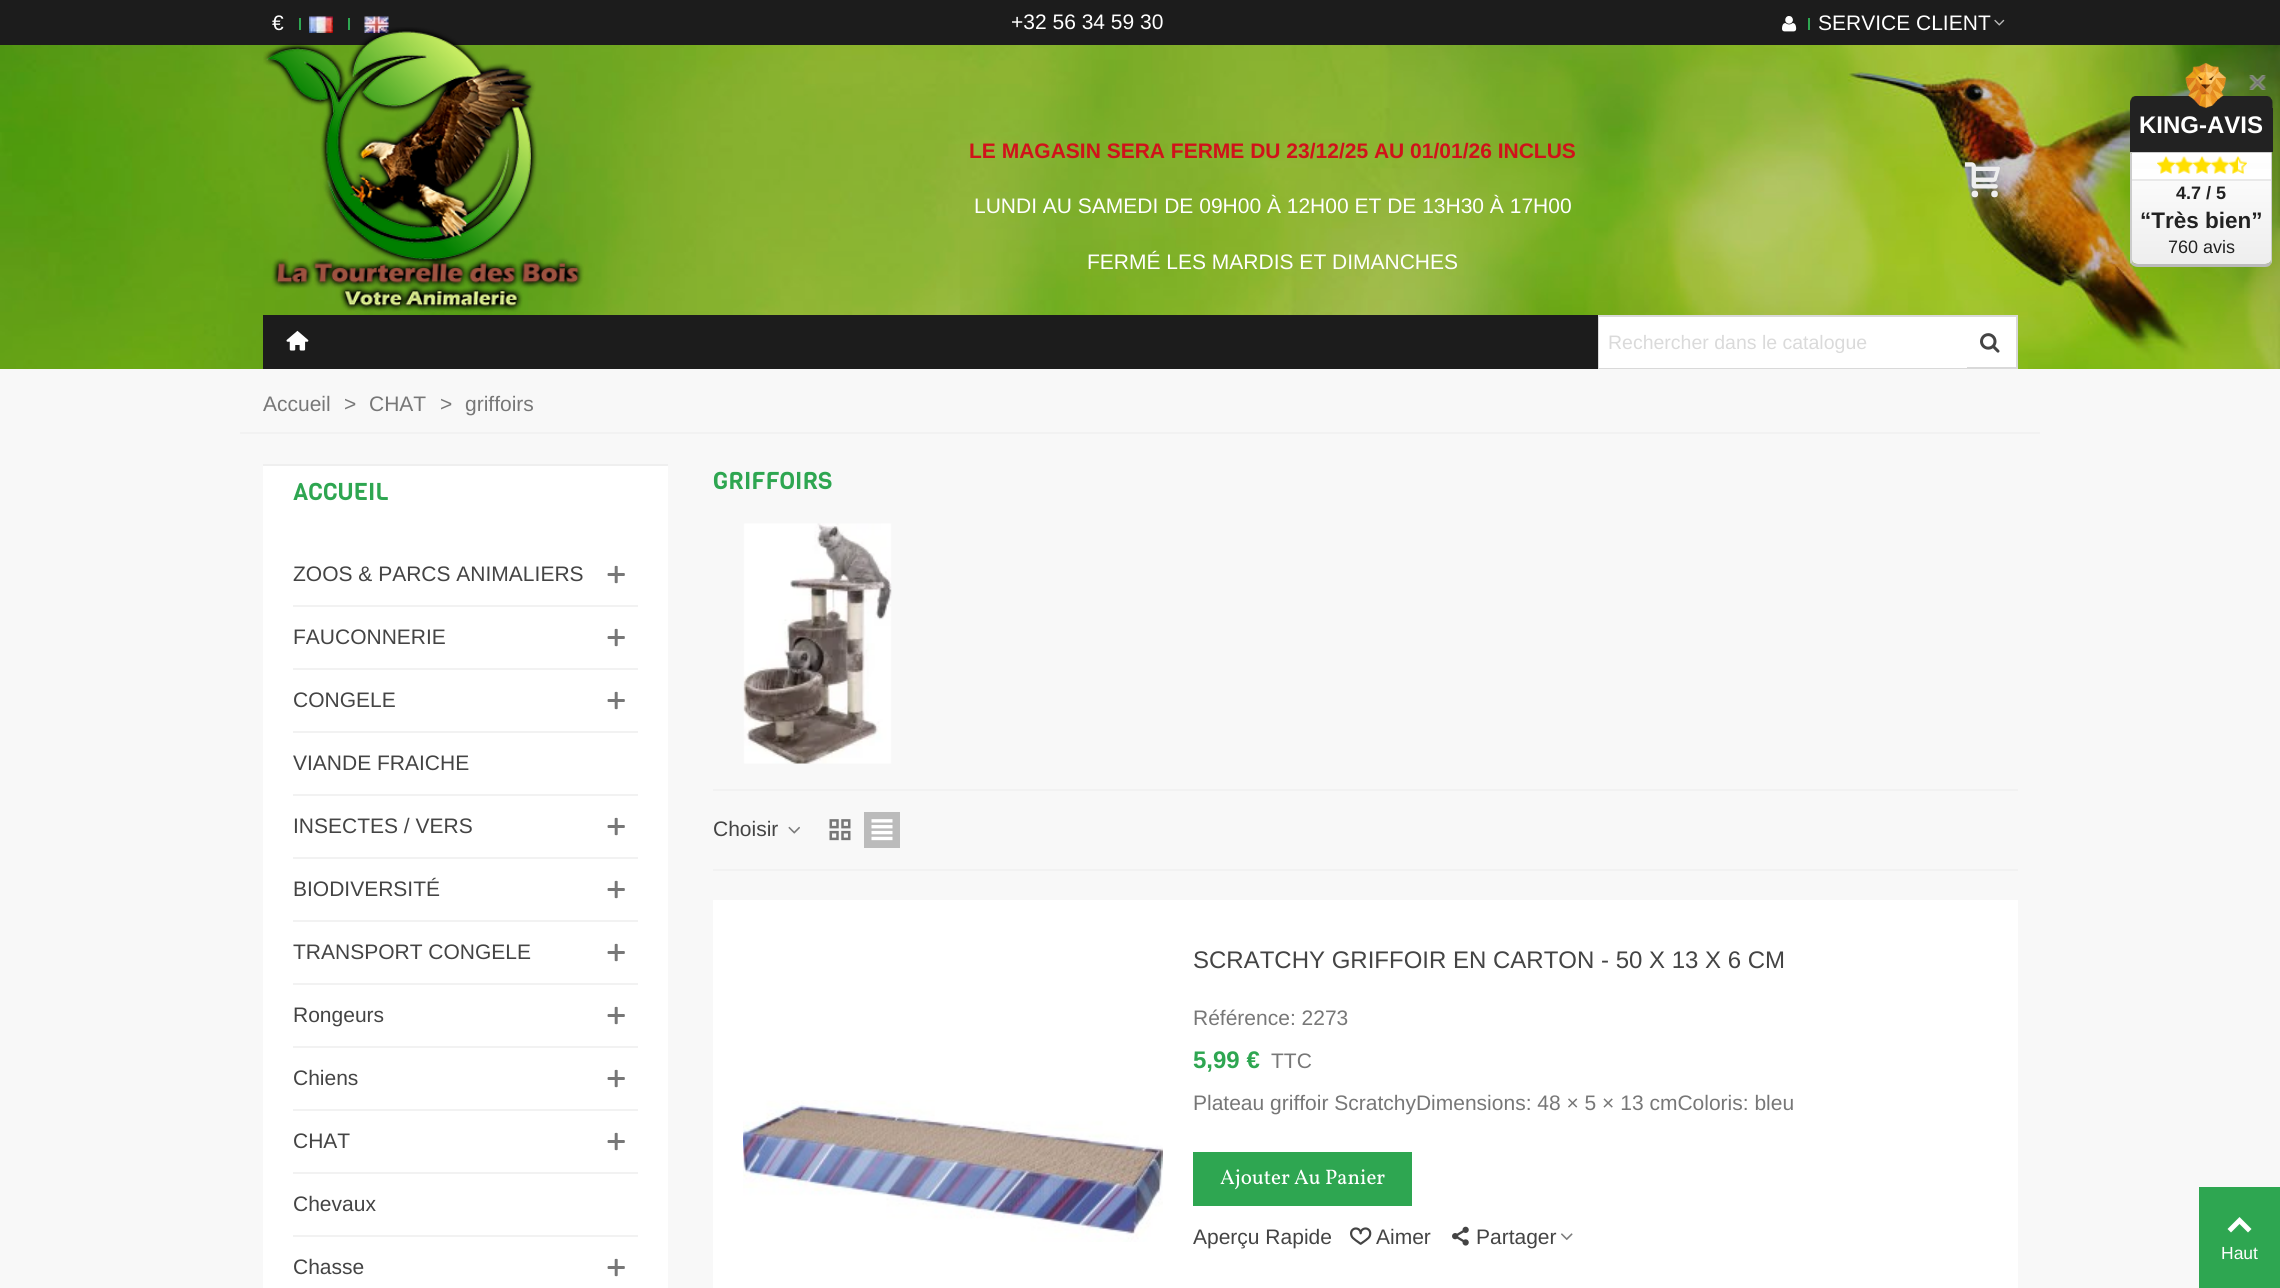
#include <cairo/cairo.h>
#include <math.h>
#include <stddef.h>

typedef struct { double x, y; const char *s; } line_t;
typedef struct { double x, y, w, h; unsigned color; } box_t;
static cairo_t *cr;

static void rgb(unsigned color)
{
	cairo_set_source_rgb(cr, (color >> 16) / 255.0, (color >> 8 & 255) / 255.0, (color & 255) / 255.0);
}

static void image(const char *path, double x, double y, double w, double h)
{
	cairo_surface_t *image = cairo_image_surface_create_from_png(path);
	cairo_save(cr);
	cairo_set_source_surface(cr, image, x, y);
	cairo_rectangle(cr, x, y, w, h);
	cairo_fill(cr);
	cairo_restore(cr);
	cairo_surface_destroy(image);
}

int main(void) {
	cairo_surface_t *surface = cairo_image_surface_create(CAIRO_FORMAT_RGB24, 2280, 1288);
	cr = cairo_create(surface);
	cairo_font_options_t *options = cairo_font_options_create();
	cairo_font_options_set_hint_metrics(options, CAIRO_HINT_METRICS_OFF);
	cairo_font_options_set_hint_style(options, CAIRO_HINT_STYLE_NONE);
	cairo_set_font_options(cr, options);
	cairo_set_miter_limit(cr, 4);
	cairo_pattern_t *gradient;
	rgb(0xf8f8f8);
	cairo_paint(cr);
	image("img/1.png", 0, 45, 2280, 324);
	rgb(0x1c1c1c);
	cairo_rectangle(cr, 0, 0, 2280, 45);
	cairo_fill(cr);
	rgb(0x2ea651);
	cairo_rectangle(cr, 299, 18, 2, 12);
	cairo_fill(cr);
	image("img/2.png", 309, 16, 24, 17);
	cairo_rectangle(cr, 348, 18, 2, 12);
	cairo_fill(cr);
	image("img/3.png", 364, 16, 25, 17);
	image("img/4.png", 1782, 16, 15, 16);
	cairo_rectangle(cr, 1808, 18, 2, 12);
	cairo_fill(cr);
	image("img/5.png", 1994, 19, 11, 7);
	cairo_set_source_rgba(cr, 0, 0, 0, 0.2);
	cairo_rectangle(cr, 0, 45, 2280, 270);
	cairo_fill(cr);
	image("img/7.png", 1965, 162, 35, 36);
	cairo_rectangle(cr, 0, 315, 2280, 54);
	cairo_fill(cr);
	rgb(0x1c1c1c);
	cairo_rectangle(cr, 263, 315, 1335, 54);
	cairo_fill(cr);
	image("img/8.png", 286, 330, 23, 21);
	rgb(0xffffff);
	cairo_rectangle(cr, 1967, 317, 49, 50);
	cairo_fill(cr);
	cairo_rectangle(cr, 1599, 316, 418, 52);
	rgb(0xd9d9d9);
	cairo_stroke(cr);
	rgb(0xffffff);
	cairo_rectangle(cr, 1599, 317, 368, 51);
	cairo_fill(cr);
	image("img/9.png", 1980, 333, 20, 20);
	{
		static const box_t items[] = {
			{240, 432, 1800, 2, 0xf2f2f2},
			{263, 466, 405, 822, 0xffffff},
			{263, 464, 405, 2, 0xefefef},
			{293, 605, 345, 2, 0xf2f2f2},
		};
		for (size_t i = 0; i < sizeof items / sizeof *items; i++) {
			rgb(items[i].color);
			cairo_rectangle(cr, items[i].x, items[i].y, items[i].w, items[i].h);
			cairo_fill(cr);
		}
	}
	image("img/10.png", 607, 565, 18, 19);
	cairo_rectangle(cr, 293, 668, 345, 2);
	cairo_fill(cr);
	image("img/10.png", 607, 628, 18, 19);
	cairo_rectangle(cr, 293, 731, 345, 2);
	cairo_fill(cr);
	image("img/10.png", 607, 691, 18, 19);
	cairo_rectangle(cr, 293, 794, 345, 2);
	cairo_fill(cr);
	cairo_rectangle(cr, 293, 857, 345, 2);
	cairo_fill(cr);
	image("img/10.png", 607, 817, 18, 19);
	cairo_rectangle(cr, 293, 920, 345, 2);
	cairo_fill(cr);
	image("img/10.png", 607, 880, 18, 19);
	cairo_rectangle(cr, 293, 983, 345, 2);
	cairo_fill(cr);
	image("img/10.png", 607, 943, 18, 19);
	cairo_rectangle(cr, 293, 1046, 345, 2);
	cairo_fill(cr);
	image("img/10.png", 607, 1006, 18, 19);
	cairo_rectangle(cr, 293, 1109, 345, 2);
	cairo_fill(cr);
	image("img/10.png", 607, 1069, 18, 19);
	cairo_rectangle(cr, 293, 1172, 345, 2);
	cairo_fill(cr);
	image("img/10.png", 607, 1132, 18, 19);
	cairo_rectangle(cr, 293, 1235, 345, 2);
	cairo_fill(cr);
	image("img/10.png", 607, 1258, 18, 19);
	image("img/11.png", 743, 523, 149, 241);
	cairo_rectangle(cr, 713, 789, 1305, 2);
	cairo_fill(cr);
	cairo_rectangle(cr, 713, 869, 1305, 2);
	cairo_fill(cr);
	image("img/12.png", 788, 826, 12, 8);
	image("img/13.png", 829, 819, 22, 22);
	rgb(0xbbbbbb);
	cairo_rectangle(cr, 864, 812, 36, 36);
	cairo_fill(cr);
	image("img/14.png", 871, 819, 22, 22);
	rgb(0xffffff);
	cairo_rectangle(cr, 713, 900, 1305, 388);
	cairo_fill(cr);
	image("img/15.png", 743, 1100, 420, 142);
	rgb(0x2ea651);
	cairo_rectangle(cr, 1193, 1152, 219, 54);
	cairo_fill(cr);
	image("img/16.png", 1350, 1227, 22, 18);
	image("img/17.png", 1452, 1226, 17, 20);
	image("img/18.png", 1561, 1233, 12, 8);
	cairo_rectangle(cr, 2199, 1187, 81, 101);
	cairo_fill(cr);
	rgb(0xffffff);
	cairo_new_path(cr);
	cairo_move_to(cr, 2227.5, 1229);
	cairo_line_to(cr, 2239.5, 1217);
	cairo_line_to(cr, 2251.5, 1229);
	cairo_line_to(cr, 2248, 1232.5);
	cairo_line_to(cr, 2239.5, 1224);
	cairo_line_to(cr, 2231, 1232.5);
	cairo_close_path(cr);
	cairo_fill(cr);
	image("img/19.png", 2130, 63, 143, 45);
	rgb(0x222222);
	cairo_rectangle(cr, 2130, 108, 143, 44);
	cairo_fill(cr);
	gradient = cairo_pattern_create_linear(2201, 153, 2201, 264);
	cairo_pattern_add_color_stop_rgba(gradient, 0, 1, 1, 1, 1);
	cairo_pattern_add_color_stop_rgba(gradient, 1, 0.933, 0.933, 0.933, 1);
	cairo_set_source(cr, gradient);
	cairo_pattern_destroy(gradient);
	cairo_new_path(cr);
	cairo_move_to(cr, 2132, 153);
	cairo_line_to(cr, 2271, 153);
	cairo_line_to(cr, 2271, 260);
	cairo_curve_to(cr, 2271, 262, 2268, 264, 2265, 264);
	cairo_line_to(cr, 2138, 264);
	cairo_curve_to(cr, 2134, 264, 2132, 262, 2132, 260);
	cairo_close_path(cr);
	cairo_fill(cr);
	rgb(0xcccccc);
	cairo_new_path(cr);
	cairo_move_to(cr, 2132, 153);
	cairo_line_to(cr, 2271, 153);
	cairo_line_to(cr, 2272, 152);
	cairo_line_to(cr, 2130, 152);
	cairo_line_to(cr, 2132, 154);
	cairo_close_path(cr);
	cairo_fill(cr);
	cairo_new_path(cr);
	cairo_move_to(cr, 2271, 264);
	cairo_curve_to(cr, 2272, 263, 2272, 261, 2272, 260);
	cairo_line_to(cr, 2272, 152);
	cairo_line_to(cr, 2271, 153);
	cairo_line_to(cr, 2271, 260);
	cairo_line_to(cr, 2270, 262);
	cairo_close_path(cr);
	cairo_fill(cr);
	rgb(0xbbbbbb);
	cairo_new_path(cr);
	cairo_move_to(cr, 2138, 267);
	cairo_line_to(cr, 2265, 267);
	cairo_curve_to(cr, 2268, 267, 2270, 266, 2271, 264);
	cairo_line_to(cr, 2270, 262);
	cairo_curve_to(cr, 2269, 263, 2267, 264, 2265, 264);
	cairo_line_to(cr, 2138, 264);
	cairo_curve_to(cr, 2135, 264, 2133, 263, 2133, 262);
	cairo_line_to(cr, 2131, 264);
	cairo_curve_to(cr, 2133, 266, 2135, 267, 2138, 267);
	cairo_close_path(cr);
	cairo_fill(cr);
	rgb(0xcccccc);
	cairo_new_path(cr);
	cairo_move_to(cr, 2130, 152);
	cairo_line_to(cr, 2132, 154);
	cairo_line_to(cr, 2132, 260);
	cairo_line_to(cr, 2133, 262);
	cairo_line_to(cr, 2131, 264);
	cairo_curve_to(cr, 2130, 263, 2130, 262, 2130, 260);
	cairo_close_path(cr);
	cairo_fill(cr);
	image("img/20.png", 2249, 75, 17, 15);
	rgb(0xffffff);
	cairo_rectangle(cr, 2132, 169, 139, 10);
	cairo_fill(cr);
	rgb(0xe9e9e9);
	cairo_rectangle(cr, 2132, 179, 139, 2);
	cairo_fill(cr);
	image("img/21.png", 2157, 156, 18, 18);
	image("img/22.png", 2174, 156, 20, 18);
	image("img/23.png", 2193, 156, 18, 18);
	image("img/22.png", 2210, 156, 20, 18);
	image("img/24.png", 2229, 156, 18, 18);
	cairo_select_font_face(cr, "Liberation Sans", CAIRO_FONT_SLANT_NORMAL, CAIRO_FONT_WEIGHT_NORMAL);
	cairo_set_font_size(cr, 21);
	rgb(0xffffff);
	{
		static const line_t items[] = {
			{272, 30, "€"},
			{1011, 29, "+32 56 34 59 30"},
			{1818, 30, "SERVICE CLIENT"},
		};
		for (size_t i = 0; i < sizeof items / sizeof *items; i++) {
			cairo_move_to(cr, items[i].x, items[i].y);
			cairo_show_text(cr, items[i].s);
		}
	}
	image("img/6.png", 263, 27, 321, 285);
	cairo_select_font_face(cr, "Liberation Sans", CAIRO_FONT_SLANT_NORMAL, CAIRO_FONT_WEIGHT_BOLD);
	rgb(0xd0121a);
	cairo_move_to(cr, 969, 158);
	cairo_show_text(cr, "LE MAGASIN SERA FERME DU 23/12/25 AU 01/01/26 INCLUS");
	cairo_select_font_face(cr, "Liberation Sans", CAIRO_FONT_SLANT_NORMAL, CAIRO_FONT_WEIGHT_NORMAL);
	rgb(0xffffff);
	cairo_move_to(cr, 974, 213);
	cairo_show_text(cr, "LUNDI AU SAMEDI DE 09H00 À 12H00 ET DE 13H30 À 17H00");
	cairo_move_to(cr, 1087, 269);
	cairo_show_text(cr, "FERMÉ LES MARDIS ET DIMANCHES");
	cairo_set_font_size(cr, 19.5);
	rgb(0xdadada);
	cairo_move_to(cr, 1608, 349);
	cairo_show_text(cr, "Rechercher dans le catalogue");
	cairo_set_font_size(cr, 21);
	rgb(0x777777);
	{
		static const line_t items[] = {
			{263, 411, "Accueil"},
			{344, 411, ">"},
			{369, 411, "CHAT"},
			{440, 411, ">"},
			{465, 411, "griffoirs"},
		};
		for (size_t i = 0; i < sizeof items / sizeof *items; i++) {
			cairo_move_to(cr, items[i].x, items[i].y);
			cairo_show_text(cr, items[i].s);
		}
	}
	cairo_select_font_face(cr, "Viga", CAIRO_FONT_SLANT_NORMAL, CAIRO_FONT_WEIGHT_NORMAL);
	cairo_set_font_size(cr, 24);
	rgb(0x2ea651);
	cairo_move_to(cr, 293, 500);
	cairo_show_text(cr, "ACCUEIL");
	cairo_select_font_face(cr, "Liberation Sans", CAIRO_FONT_SLANT_NORMAL, CAIRO_FONT_WEIGHT_NORMAL);
	cairo_set_font_size(cr, 21);
	rgb(0x444444);
	{
		static const line_t items[] = {
			{293, 581, "ZOOS & PARCS ANIMALIERS"},
			{293, 644, "FAUCONNERIE"},
			{293, 707, "CONGELE"},
			{293, 770, "VIANDE FRAICHE"},
			{293, 833, "INSECTES / VERS"},
			{293, 896, "BIODIVERSITÉ"},
			{293, 959, "TRANSPORT CONGELE"},
			{293, 1022, "Rongeurs"},
			{293, 1085, "Chiens"},
			{293, 1148, "CHAT"},
			{293, 1211, "Chevaux"},
			{293, 1274, "Chasse"},
		};
		for (size_t i = 0; i < sizeof items / sizeof *items; i++) {
			cairo_move_to(cr, items[i].x, items[i].y);
			cairo_show_text(cr, items[i].s);
		}
	}
	cairo_select_font_face(cr, "Viga", CAIRO_FONT_SLANT_NORMAL, CAIRO_FONT_WEIGHT_NORMAL);
	cairo_set_font_size(cr, 24);
	rgb(0x2ea651);
	cairo_move_to(cr, 713, 489);
	cairo_show_text(cr, "GRIFFOIRS");
	cairo_select_font_face(cr, "Liberation Sans", CAIRO_FONT_SLANT_NORMAL, CAIRO_FONT_WEIGHT_NORMAL);
	cairo_set_font_size(cr, 21);
	rgb(0x444444);
	cairo_move_to(cr, 713, 836);
	cairo_show_text(cr, "Choisir");
	cairo_set_font_size(cr, 24);
	cairo_move_to(cr, 1193, 968);
	cairo_show_text(cr, "SCRATCHY GRIFFOIR EN CARTON - 50 X 13 X 6 CM");
	cairo_set_font_size(cr, 21);
	rgb(0x777777);
	cairo_move_to(cr, 1193, 1025);
	cairo_show_text(cr, "Référence: 2273");
	cairo_select_font_face(cr, "Liberation Sans", CAIRO_FONT_SLANT_NORMAL, CAIRO_FONT_WEIGHT_BOLD);
	cairo_set_font_size(cr, 24);
	rgb(0x2ea651);
	cairo_move_to(cr, 1193, 1068);
	cairo_show_text(cr, "5,99 €");
	cairo_select_font_face(cr, "Liberation Sans", CAIRO_FONT_SLANT_NORMAL, CAIRO_FONT_WEIGHT_NORMAL);
	cairo_set_font_size(cr, 21);
	rgb(0x777777);
	cairo_move_to(cr, 1271, 1068);
	cairo_show_text(cr, "TTC");
	cairo_move_to(cr, 1193, 1110);
	cairo_show_text(cr, "Plateau griffoir ScratchyDimensions: 48 × 5 × 13 cmColoris: bleu");
	cairo_select_font_face(cr, "Vollkorn", CAIRO_FONT_SLANT_NORMAL, CAIRO_FONT_WEIGHT_NORMAL);
	rgb(0xffffff);
	cairo_move_to(cr, 1220, 1184);
	cairo_show_text(cr, "Ajouter Au Panier");
	cairo_select_font_face(cr, "Liberation Sans", CAIRO_FONT_SLANT_NORMAL, CAIRO_FONT_WEIGHT_NORMAL);
	rgb(0x444444);
	{
		static const line_t items[] = {
			{1193, 1244, "Aperçu Rapide"},
			{1376, 1244, "Aimer"},
			{1476, 1244, "Partager"},
		};
		for (size_t i = 0; i < sizeof items / sizeof *items; i++) {
			cairo_move_to(cr, items[i].x, items[i].y);
			cairo_show_text(cr, items[i].s);
		}
	}
	cairo_set_font_size(cr, 17.5);
	rgb(0xffffff);
	cairo_move_to(cr, 2221, 1259);
	cairo_show_text(cr, "Haut");
	cairo_select_font_face(cr, "Liberation Sans", CAIRO_FONT_SLANT_NORMAL, CAIRO_FONT_WEIGHT_BOLD);
	cairo_set_font_size(cr, 24);
	cairo_move_to(cr, 2139, 133);
	cairo_show_text(cr, "KING-AVIS");
	cairo_set_font_size(cr, 18);
	rgb(0x222222);
	cairo_move_to(cr, 2176, 199);
	cairo_show_text(cr, "4.7 / 5");
	cairo_set_font_size(cr, 22.5);
	cairo_move_to(cr, 2140, 228);
	cairo_show_text(cr, "“Très bien”");
	cairo_select_font_face(cr, "Liberation Sans", CAIRO_FONT_SLANT_NORMAL, CAIRO_FONT_WEIGHT_NORMAL);
	cairo_set_font_size(cr, 18);
	cairo_move_to(cr, 2168, 253);
	cairo_show_text(cr, "760 avis");
	cairo_surface_write_to_png(surface, "page.png");
	cairo_font_options_destroy(options);
	cairo_destroy(cr);
	cairo_surface_destroy(surface);
	return 0;
}
